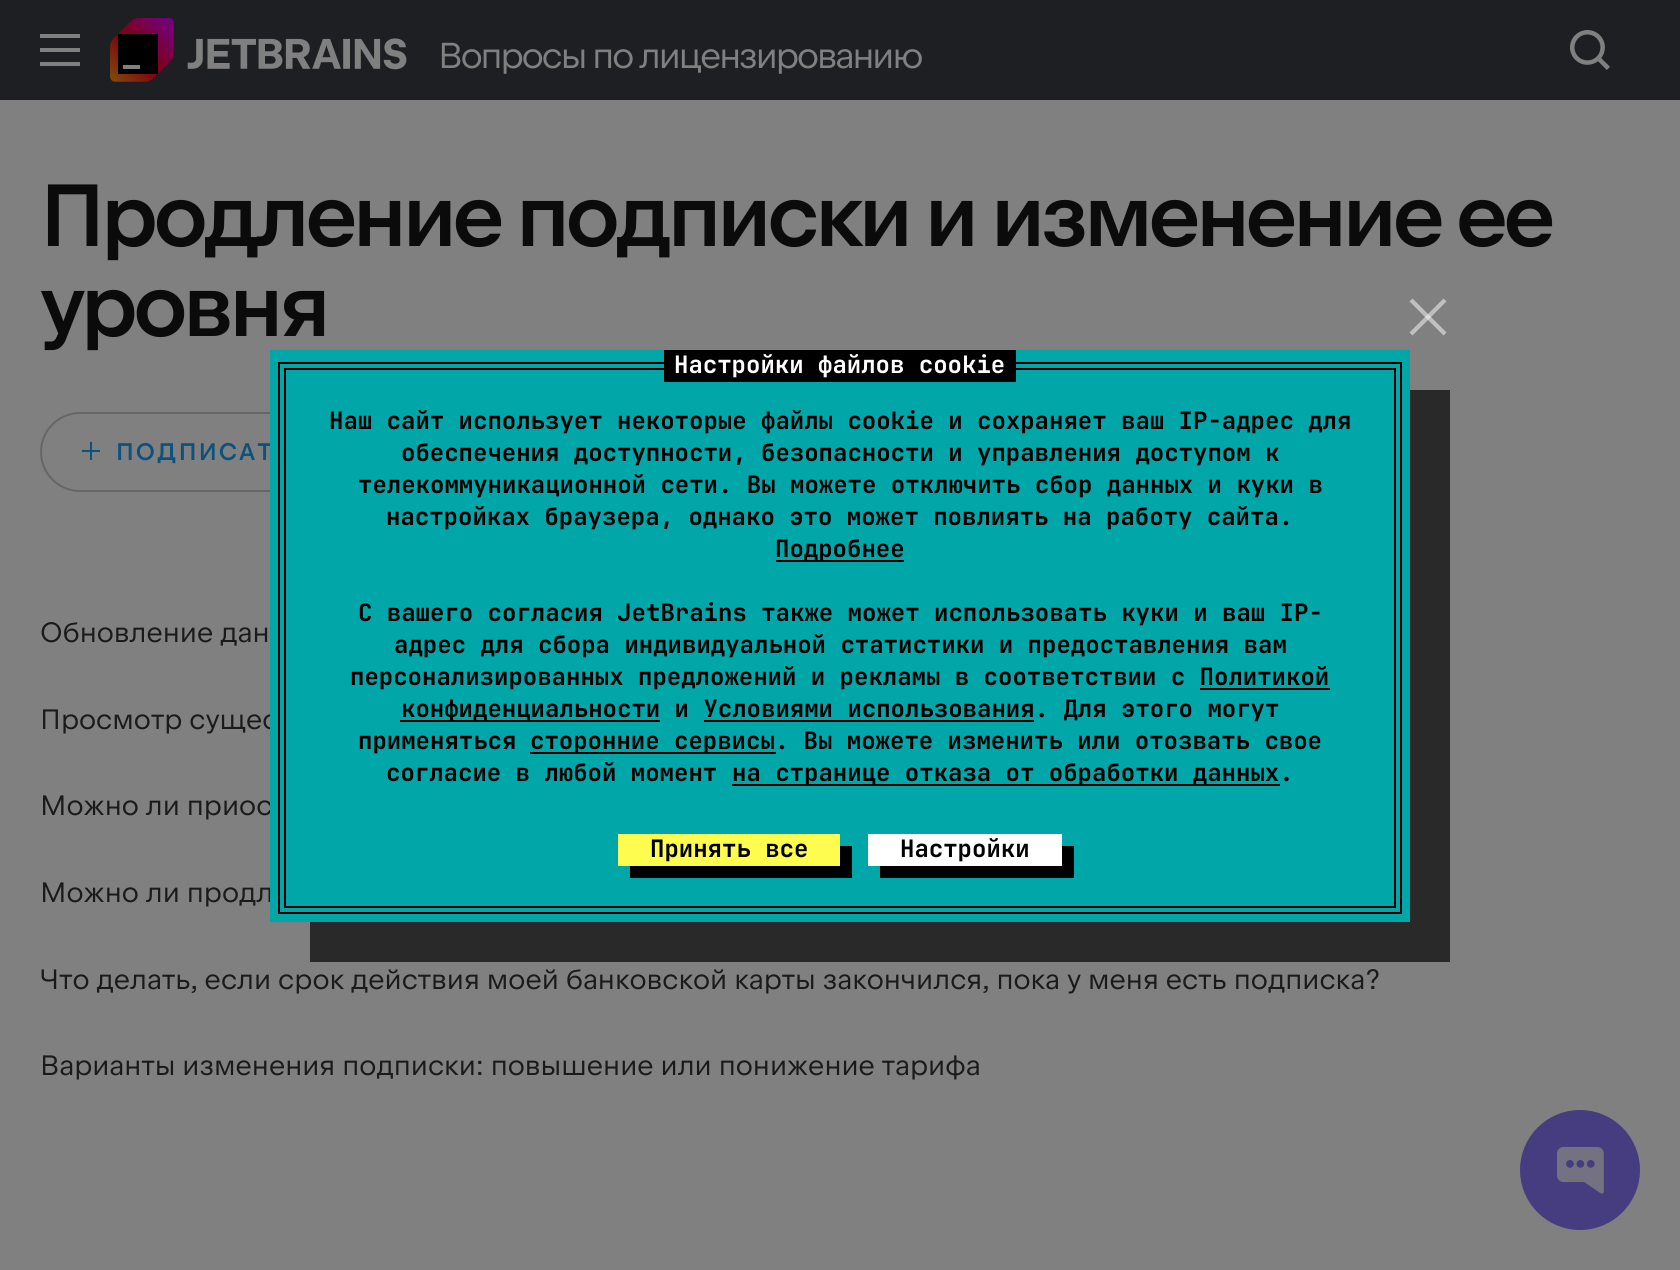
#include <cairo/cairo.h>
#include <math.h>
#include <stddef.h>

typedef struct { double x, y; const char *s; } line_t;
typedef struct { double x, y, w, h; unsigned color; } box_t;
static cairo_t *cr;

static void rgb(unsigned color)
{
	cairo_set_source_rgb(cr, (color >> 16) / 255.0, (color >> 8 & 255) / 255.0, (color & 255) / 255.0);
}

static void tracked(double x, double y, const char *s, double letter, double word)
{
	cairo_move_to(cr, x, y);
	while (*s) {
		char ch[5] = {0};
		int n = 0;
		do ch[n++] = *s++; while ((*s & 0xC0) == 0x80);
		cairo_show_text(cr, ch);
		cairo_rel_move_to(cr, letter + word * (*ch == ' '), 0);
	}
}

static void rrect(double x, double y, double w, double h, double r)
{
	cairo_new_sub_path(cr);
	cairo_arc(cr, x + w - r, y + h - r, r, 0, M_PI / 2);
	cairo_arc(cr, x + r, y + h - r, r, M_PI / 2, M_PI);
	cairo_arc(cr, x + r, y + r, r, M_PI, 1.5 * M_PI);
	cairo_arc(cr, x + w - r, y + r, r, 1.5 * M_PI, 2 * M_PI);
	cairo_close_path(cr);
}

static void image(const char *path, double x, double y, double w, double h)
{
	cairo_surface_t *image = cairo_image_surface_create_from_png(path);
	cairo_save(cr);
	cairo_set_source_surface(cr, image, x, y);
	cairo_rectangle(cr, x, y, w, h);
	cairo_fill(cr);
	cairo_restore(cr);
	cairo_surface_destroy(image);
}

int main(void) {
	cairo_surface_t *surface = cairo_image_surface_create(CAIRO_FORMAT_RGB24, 1680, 1270);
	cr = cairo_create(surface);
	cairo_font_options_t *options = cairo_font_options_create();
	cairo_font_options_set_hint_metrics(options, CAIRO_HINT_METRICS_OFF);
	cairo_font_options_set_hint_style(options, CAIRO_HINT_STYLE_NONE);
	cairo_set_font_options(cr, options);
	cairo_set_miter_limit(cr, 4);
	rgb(0x808080);
	cairo_paint(cr);
	{
		static const box_t items[] = {
			{0, 0, 1680, 100, 0x1e1f22},
			{40, 48, 40, 4, 0x808080},
			{40, 34, 40, 4, 0x808080},
			{40, 62, 40, 4, 0x808080},
		};
		for (size_t i = 0; i < sizeof items / sizeof *items; i++) {
			rgb(items[i].color);
			cairo_rectangle(cr, items[i].x, items[i].y, items[i].w, items[i].h);
			cairo_fill(cr);
		}
	}
	image("img/1.png", 110, 18, 297, 64);
	image("img/2.png", 1570, 30, 40, 40);
	rrect(41, 413, 330, 78, 39);
	rgb(0x666666);
	cairo_stroke(cr);
	image("img/3.png", 82, 442, 18, 18);
	rgb(0x292929);
	cairo_new_path(cr);
	cairo_move_to(cr, 310, 922);
	cairo_line_to(cr, 310, 962);
	cairo_line_to(cr, 1450, 962);
	cairo_line_to(cr, 1450, 390);
	cairo_line_to(cr, 1410, 390);
	cairo_line_to(cr, 1410, 922);
	cairo_close_path(cr);
	cairo_fill(cr);
	rgb(0xbfbfbf);
	cairo_new_path(cr);
	cairo_move_to(cr, 1409.5, 332.5);
	cairo_line_to(cr, 1443.5, 298.5);
	cairo_line_to(cr, 1446.5, 301.5);
	cairo_line_to(cr, 1412.5, 335.5);
	cairo_close_path(cr);
	cairo_fill(cr);
	cairo_set_source_rgba(cr, 1, 1, 1, 0.5);
	cairo_new_path(cr);
	cairo_move_to(cr, 1412.5, 298.5);
	cairo_line_to(cr, 1446.5, 332.5);
	cairo_line_to(cr, 1443.5, 335.5);
	cairo_line_to(cr, 1409.5, 301.5);
	cairo_close_path(cr);
	cairo_fill(cr);
	rgb(0x453d80);
	cairo_arc(cr, 1580, 1170, 60, 0, 2 * M_PI);
	cairo_fill(cr);
	image("img/4.png", 1557, 1147, 47, 47);
	cairo_select_font_face(cr, "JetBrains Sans", CAIRO_FONT_SLANT_NORMAL, CAIRO_FONT_WEIGHT_NORMAL);
	cairo_set_font_size(cr, 36);
	rgb(0x808080);
	tracked(438, 68, "Вопросы по лицензированию", -2, 0);
	cairo_select_font_face(cr, "JetBrains Sans SemiBold", CAIRO_FONT_SLANT_NORMAL, CAIRO_FONT_WEIGHT_NORMAL);
	cairo_set_font_size(cr, 88);
	rgb(0x0b0b0b);
	tracked(40, 246, "Продление подписки и изменение ее", -4, 0);
	tracked(40, 336, "уровня", -4, 0);
	cairo_set_font_size(cr, 24);
	rgb(0x0c527d);
	tracked(116, 460, "ПОДПИСАТ", 2, 0);
	cairo_select_font_face(cr, "JetBrains Sans", CAIRO_FONT_SLANT_NORMAL, CAIRO_FONT_WEIGHT_NORMAL);
	cairo_set_font_size(cr, 28);
	rgb(0x1a1a1a);
	{
		static const line_t items[] = {
			{40, 642, "Обновление дан"},
			{40, 729, "Просмотр сущес"},
			{40, 815, "Можно ли приос"},
			{40, 902, "Можно ли продл"},
			{40, 989, "Что делать, если срок действия моей банковской карты закончился, пока у меня есть подписка?"},
			{40, 1075, "Варианты изменения подписки: повышение или понижение тарифа"},
		};
		for (size_t i = 0; i < sizeof items / sizeof *items; i++) {
			cairo_move_to(cr, items[i].x, items[i].y);
			cairo_show_text(cr, items[i].s);
		}
	}
	{
		static const box_t items[] = {
			{270, 350, 1140, 572, 0x01a7a8},
			{284, 368, 1112, 2, 0x000000},
			{1394, 368, 2, 540, 0x000000},
			{284, 368, 2, 466, 0x000000},
			{278, 362, 1124, 2, 0x000000},
			{664, 350, 352, 32, 0x000000},
		};
		for (size_t i = 0; i < sizeof items / sizeof *items; i++) {
			rgb(items[i].color);
			cairo_rectangle(cr, items[i].x, items[i].y, items[i].w, items[i].h);
			cairo_fill(cr);
		}
	}
	cairo_select_font_face(cr, "JetBrains Mono", CAIRO_FONT_SLANT_NORMAL, CAIRO_FONT_WEIGHT_BOLD);
	cairo_set_font_size(cr, 24);
	rgb(0xffffff);
	cairo_move_to(cr, 674, 373);
	cairo_show_text(cr, "Настройки файлов cookie");
	rgb(0x000000);
	cairo_rectangle(cr, 1400, 362, 2, 552);
	cairo_fill(cr);
	cairo_rectangle(cr, 278, 362, 2, 470);
	cairo_fill(cr);
	{
		static const line_t items[] = {
			{329, 429, "Наш сайт использует некоторые файлы cookie и сохраняет ваш IP-адрес для"},
			{401, 461, "обеспечения доступности, безопасности и управления доступом к"},
			{358, 493, "телекоммуникационной сети. Вы можете отключить сбор данных и куки в"},
			{386, 525, "настройках браузера, однако это может повлиять на работу сайта."},
		};
		for (size_t i = 0; i < sizeof items / sizeof *items; i++) {
			cairo_move_to(cr, items[i].x, items[i].y);
			cairo_show_text(cr, items[i].s);
		}
	}
	cairo_rectangle(cr, 776, 560, 128, 2);
	cairo_fill(cr);
	{
		static const line_t items[] = {
			{775, 557, "Подробнее"},
			{358, 621, "С вашего согласия JetBrains также может использовать куки и ваш IP-"},
			{394, 653, "адрес для сбора индивидуальной статистики и предоставления вам"},
			{350, 685, "персонализированных предложений и рекламы в соответствии с Политикой"},
		};
		for (size_t i = 0; i < sizeof items / sizeof *items; i++) {
			cairo_move_to(cr, items[i].x, items[i].y);
			cairo_show_text(cr, items[i].s);
		}
	}
	cairo_rectangle(cr, 1200, 688, 130, 2);
	cairo_fill(cr);
	cairo_rectangle(cr, 400, 720, 260, 2);
	cairo_fill(cr);
	cairo_move_to(cr, 401, 717);
	cairo_show_text(cr, "конфиденциальности и Условиями использования. Для этого могут");
	cairo_rectangle(cr, 704, 720, 330, 2);
	cairo_fill(cr);
	cairo_move_to(cr, 358, 749);
	cairo_show_text(cr, "применяться");
	cairo_rectangle(cr, 530, 752, 246, 2);
	cairo_fill(cr);
	cairo_move_to(cr, 530, 749);
	cairo_show_text(cr, "сторонние сервисы. Вы можете изменить или отозвать свое");
	cairo_move_to(cr, 386, 781);
	cairo_show_text(cr, "согласие в любой момент");
	cairo_rectangle(cr, 732, 784, 548, 2);
	cairo_fill(cr);
	cairo_move_to(cr, 732, 781);
	cairo_show_text(cr, "на странице отказа от обработки данных.");
	{
		static const box_t items[] = {
			{284, 906, 1112, 2, 0x000000},
			{284, 834, 2, 74, 0x000000},
			{278, 912, 1124, 2, 0x000000},
			{278, 832, 2, 82, 0x000000},
		};
		for (size_t i = 0; i < sizeof items / sizeof *items; i++) {
			rgb(items[i].color);
			cairo_rectangle(cr, items[i].x, items[i].y, items[i].w, items[i].h);
			cairo_fill(cr);
		}
	}
	cairo_new_path(cr);
	cairo_move_to(cr, 630, 866);
	cairo_line_to(cr, 630, 878);
	cairo_line_to(cr, 852, 878);
	cairo_line_to(cr, 852, 846);
	cairo_line_to(cr, 840, 846);
	cairo_line_to(cr, 840, 866);
	cairo_close_path(cr);
	cairo_fill(cr);
	rgb(0xfefc4f);
	cairo_rectangle(cr, 618, 834, 222, 32);
	cairo_fill(cr);
	rgb(0x000000);
	cairo_move_to(cr, 650, 857);
	cairo_show_text(cr, "Принять все");
	cairo_new_path(cr);
	cairo_move_to(cr, 880, 866);
	cairo_line_to(cr, 880, 878);
	cairo_line_to(cr, 1074, 878);
	cairo_line_to(cr, 1074, 846);
	cairo_line_to(cr, 1062, 846);
	cairo_line_to(cr, 1062, 866);
	cairo_close_path(cr);
	cairo_fill(cr);
	rgb(0xffffff);
	cairo_rectangle(cr, 868, 834, 194, 32);
	cairo_fill(cr);
	rgb(0x000000);
	cairo_move_to(cr, 900, 857);
	cairo_show_text(cr, "Настройки");
	cairo_surface_write_to_png(surface, "page.png");
	cairo_font_options_destroy(options);
	cairo_destroy(cr);
	cairo_surface_destroy(surface);
	return 0;
}
